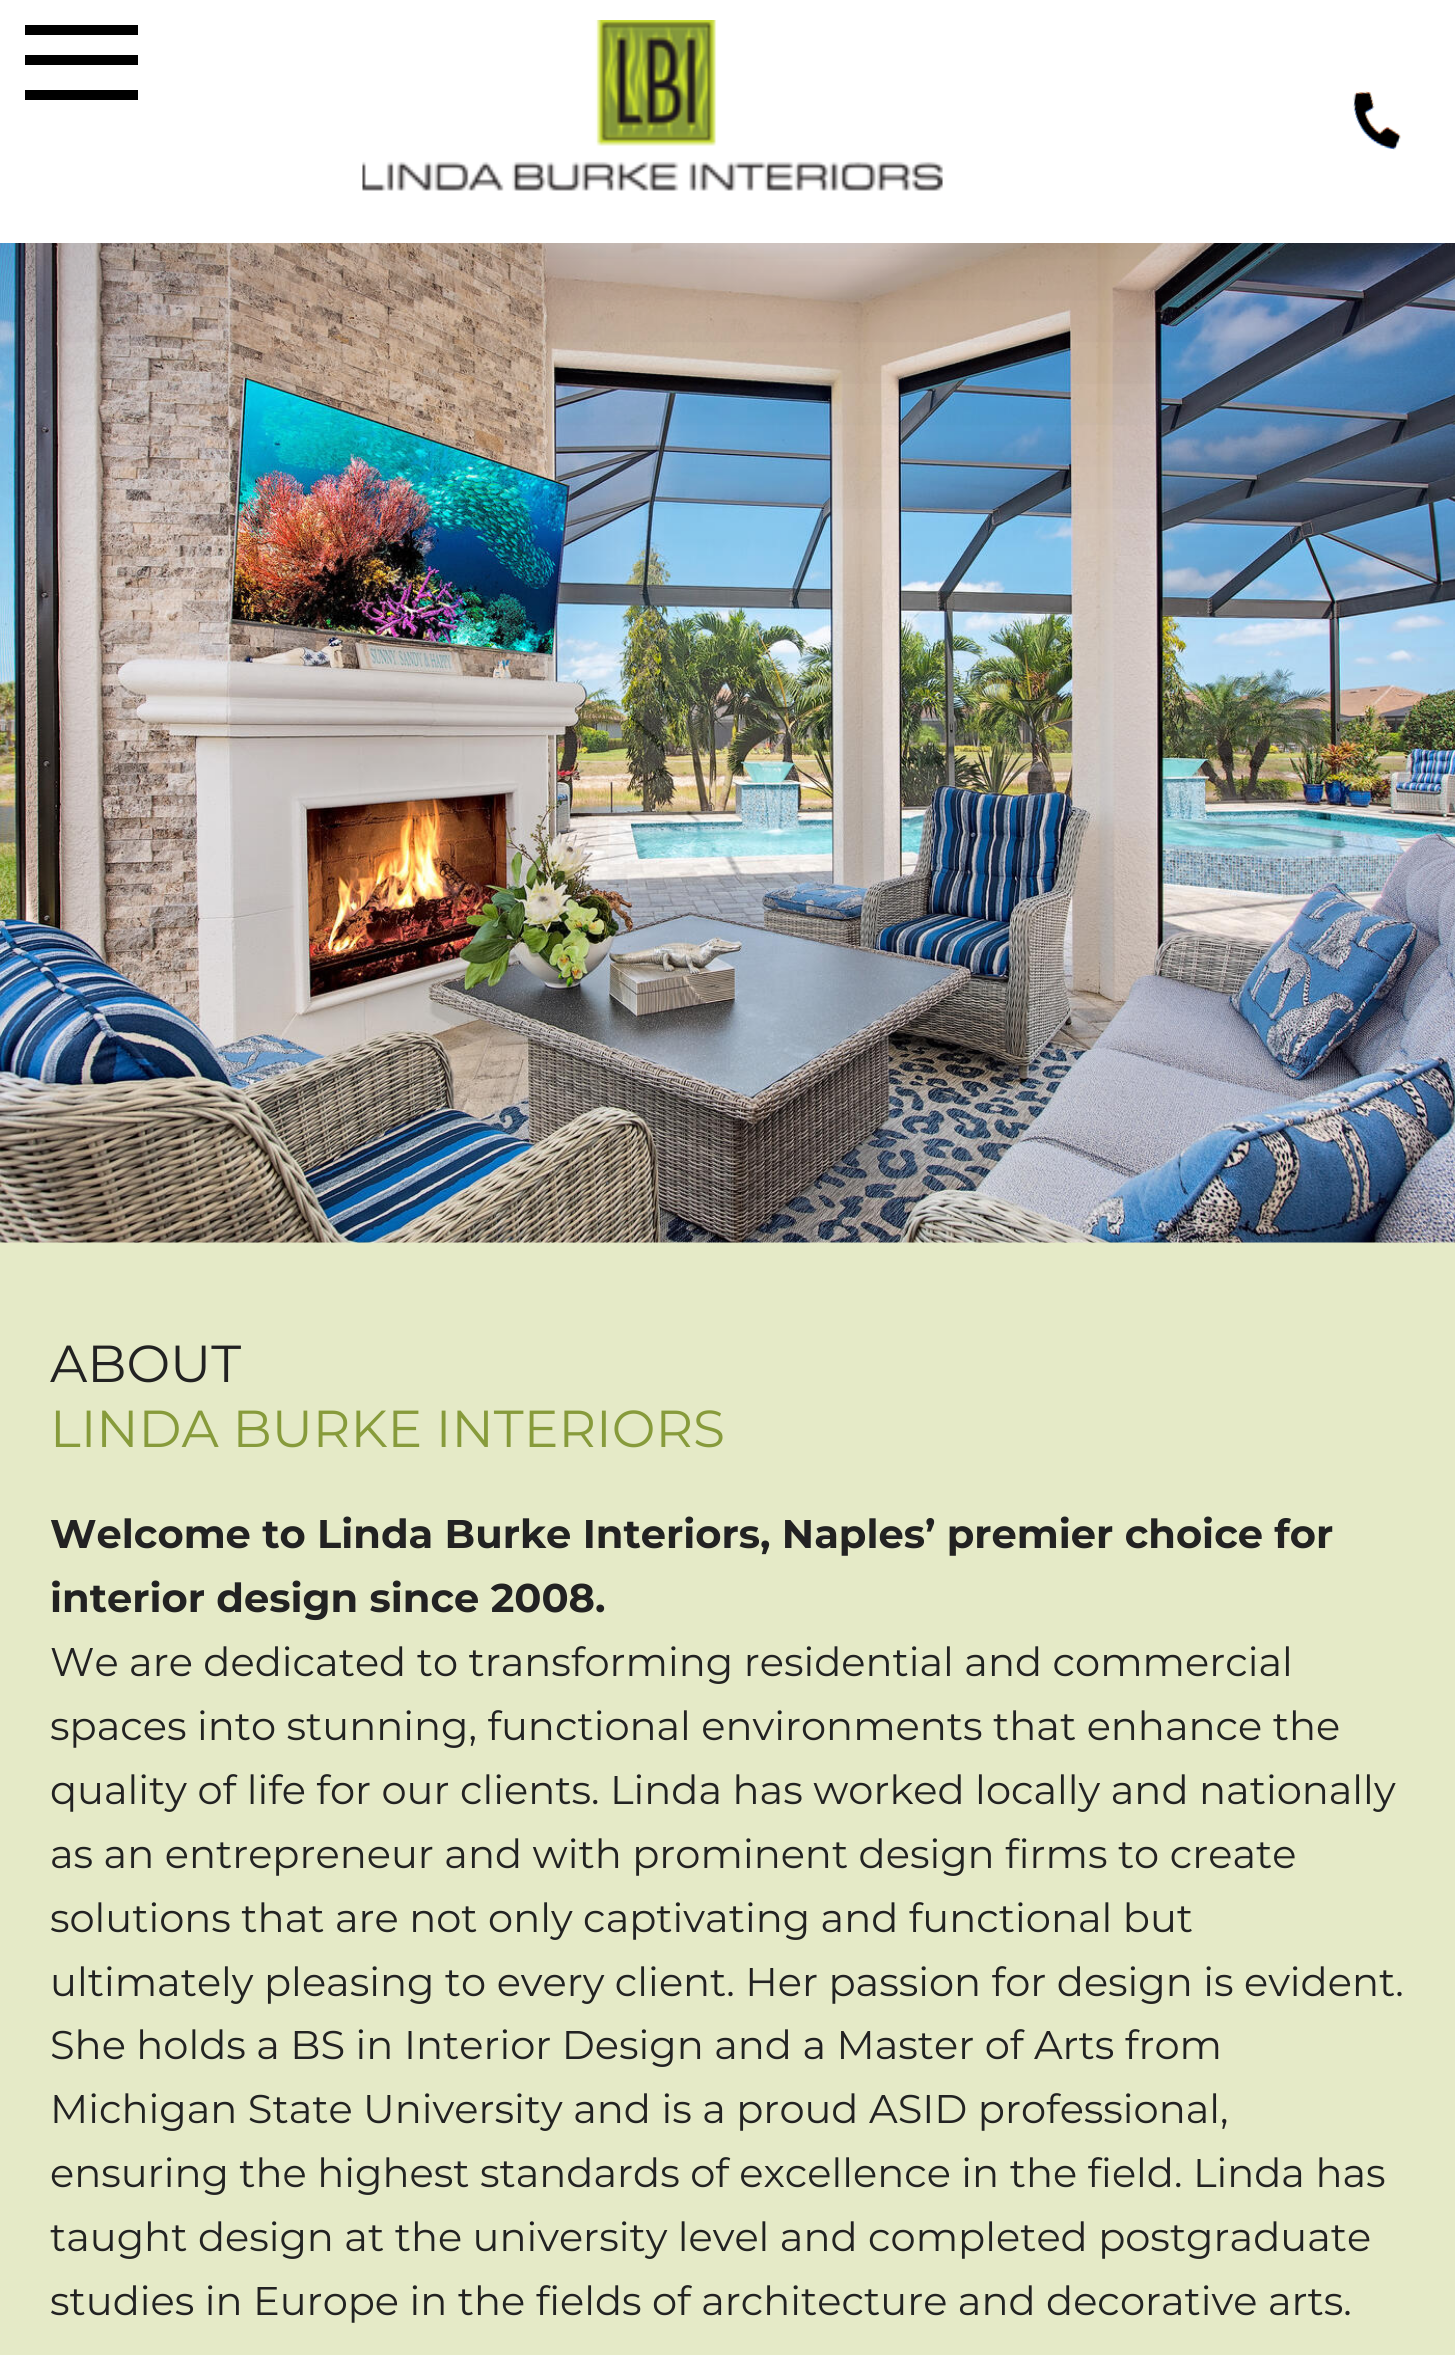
#include <cairo/cairo.h>
#include <math.h>
#include <stddef.h>

typedef struct { double x, y; const char *s; } line_t;
typedef struct { double x, y, w, h; unsigned color; } box_t;
static cairo_t *cr;

static void rgb(unsigned color)
{
	cairo_set_source_rgb(cr, (color >> 16) / 255.0, (color >> 8 & 255) / 255.0, (color & 255) / 255.0);
}

static void rrect(double x, double y, double w, double h, double r)
{
	cairo_new_sub_path(cr);
	cairo_arc(cr, x + w - r, y + h - r, r, 0, M_PI / 2);
	cairo_arc(cr, x + r, y + h - r, r, M_PI / 2, M_PI);
	cairo_arc(cr, x + r, y + r, r, M_PI, 1.5 * M_PI);
	cairo_arc(cr, x + w - r, y + r, r, 1.5 * M_PI, 2 * M_PI);
	cairo_close_path(cr);
}

static void soft_shadow(double x, double y, double w, double h, double r, double blur, double alpha)
{
	cairo_push_group_with_content(cr, CAIRO_CONTENT_ALPHA);
	cairo_set_operator(cr, CAIRO_OPERATOR_SOURCE);
	for (int i = 15; i >= -15 && fmin(w, h) + blur * i / 3 > 0; i -= 2) {
		double e = blur * i / 6;
		cairo_set_source_rgba(cr, 0, 0, 0, alpha * erfc((i - 1) / 8.5) / 2);
		rrect(x - e, y - e, w + 2 * e, h + 2 * e, fmax(0, fmin(r + e + blur * .6, fmin(w, h) / 2 + e)));
		cairo_fill(cr);
	}
	cairo_pattern_t *soft = cairo_pop_group(cr);
	cairo_mask(cr, soft);
	cairo_pattern_destroy(soft);
}

static void image(const char *path, double x, double y, double w, double h)
{
	cairo_surface_t *image = cairo_image_surface_create_from_png(path);
	cairo_save(cr);
	cairo_set_source_surface(cr, image, x, y);
	cairo_rectangle(cr, x, y, w, h);
	cairo_fill(cr);
	cairo_restore(cr);
	cairo_surface_destroy(image);
}

int main(void) {
	cairo_surface_t *surface = cairo_image_surface_create(CAIRO_FORMAT_RGB24, 1455, 2355);
	cr = cairo_create(surface);
	cairo_font_options_t *options = cairo_font_options_create();
	cairo_font_options_set_hint_metrics(options, CAIRO_HINT_METRICS_OFF);
	cairo_font_options_set_hint_style(options, CAIRO_HINT_STYLE_NONE);
	cairo_set_font_options(cr, options);
	cairo_set_miter_limit(cr, 4);
	rgb(0xe5eac7);
	cairo_paint(cr);
	image("img/3.png", 0, 243, 1455, 1000);
	rgb(0x110c2e);
	soft_shadow(0, 120, 1455, 243, 0, 125, 0.15);
	rgb(0xffffff);
	cairo_rectangle(cr, 0, 0, 1455, 243);
	cairo_fill(cr);
	image("img/1.png", 362, 20, 581, 171);
	image("img/2.png", 1353, 91, 48, 59);
	{
		static const box_t items[] = {
			{25, 25, 113, 10, 0x000000},
			{25, 55, 113, 10, 0x000000},
			{25, 90, 113, 10, 0x000000},
		};
		for (size_t i = 0; i < sizeof items / sizeof *items; i++) {
			rgb(items[i].color);
			cairo_rectangle(cr, items[i].x, items[i].y, items[i].w, items[i].h);
			cairo_fill(cr);
		}
	}
	cairo_select_font_face(cr, "Montserrat", CAIRO_FONT_SLANT_NORMAL, CAIRO_FONT_WEIGHT_NORMAL);
	cairo_set_font_size(cr, 52);
	rgb(0x222222);
	cairo_move_to(cr, 50, 1382);
	cairo_show_text(cr, "ABOUT");
	rgb(0x879b3b);
	cairo_move_to(cr, 50, 1447);
	cairo_show_text(cr, "LINDA BURKE INTERIORS");
	cairo_select_font_face(cr, "Montserrat", CAIRO_FONT_SLANT_NORMAL, CAIRO_FONT_WEIGHT_BOLD);
	cairo_set_font_size(cr, 40);
	rgb(0x222222);
	cairo_move_to(cr, 50, 1548);
	cairo_show_text(cr, "Welcome to Linda Burke Interiors, Naples’ premier choice for");
	cairo_move_to(cr, 50, 1612);
	cairo_show_text(cr, "interior design since 2008.");
	cairo_select_font_face(cr, "Montserrat", CAIRO_FONT_SLANT_NORMAL, CAIRO_FONT_WEIGHT_NORMAL);
	{
		static const line_t items[] = {
			{50, 1676, "We are dedicated to transforming residential and commercial"},
			{50, 1740, "spaces into stunning, functional environments that enhance the"},
			{50, 1804, "quality of life for our clients. Linda has worked locally and nationally"},
			{50, 1868, "as an entrepreneur and with prominent design firms to create"},
			{50, 1932, "solutions that are not only captivating and functional but"},
			{50, 1996, "ultimately pleasing to every client. Her passion for design is evident."},
			{50, 2059, "She holds a BS in Interior Design and a Master of Arts from"},
			{50, 2123, "Michigan State University and is a proud ASID professional,"},
			{50, 2187, "ensuring the highest standards of excellence in the field. Linda has"},
			{50, 2251, "taught design at the university level and completed postgraduate"},
			{50, 2315, "studies in Europe in the fields of architecture and decorative arts."},
		};
		for (size_t i = 0; i < sizeof items / sizeof *items; i++) {
			cairo_move_to(cr, items[i].x, items[i].y);
			cairo_show_text(cr, items[i].s);
		}
	}
	cairo_surface_write_to_png(surface, "page.png");
	cairo_font_options_destroy(options);
	cairo_destroy(cr);
	cairo_surface_destroy(surface);
	return 0;
}
